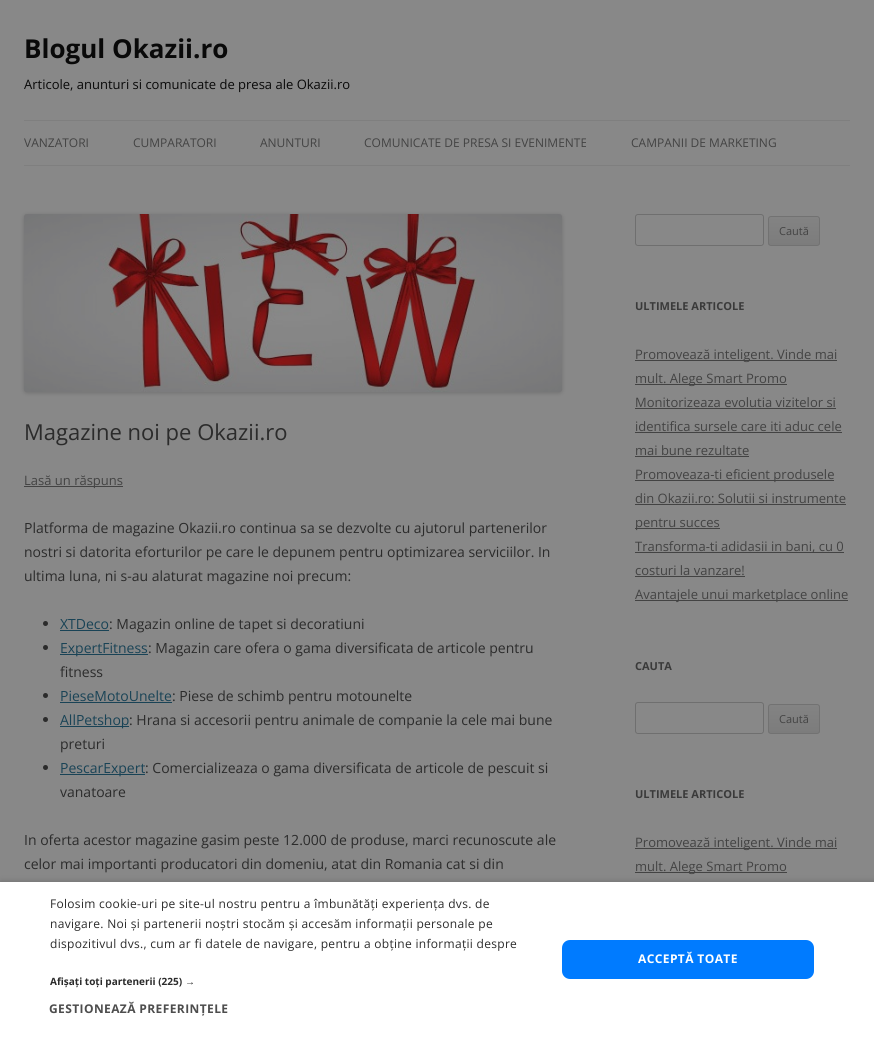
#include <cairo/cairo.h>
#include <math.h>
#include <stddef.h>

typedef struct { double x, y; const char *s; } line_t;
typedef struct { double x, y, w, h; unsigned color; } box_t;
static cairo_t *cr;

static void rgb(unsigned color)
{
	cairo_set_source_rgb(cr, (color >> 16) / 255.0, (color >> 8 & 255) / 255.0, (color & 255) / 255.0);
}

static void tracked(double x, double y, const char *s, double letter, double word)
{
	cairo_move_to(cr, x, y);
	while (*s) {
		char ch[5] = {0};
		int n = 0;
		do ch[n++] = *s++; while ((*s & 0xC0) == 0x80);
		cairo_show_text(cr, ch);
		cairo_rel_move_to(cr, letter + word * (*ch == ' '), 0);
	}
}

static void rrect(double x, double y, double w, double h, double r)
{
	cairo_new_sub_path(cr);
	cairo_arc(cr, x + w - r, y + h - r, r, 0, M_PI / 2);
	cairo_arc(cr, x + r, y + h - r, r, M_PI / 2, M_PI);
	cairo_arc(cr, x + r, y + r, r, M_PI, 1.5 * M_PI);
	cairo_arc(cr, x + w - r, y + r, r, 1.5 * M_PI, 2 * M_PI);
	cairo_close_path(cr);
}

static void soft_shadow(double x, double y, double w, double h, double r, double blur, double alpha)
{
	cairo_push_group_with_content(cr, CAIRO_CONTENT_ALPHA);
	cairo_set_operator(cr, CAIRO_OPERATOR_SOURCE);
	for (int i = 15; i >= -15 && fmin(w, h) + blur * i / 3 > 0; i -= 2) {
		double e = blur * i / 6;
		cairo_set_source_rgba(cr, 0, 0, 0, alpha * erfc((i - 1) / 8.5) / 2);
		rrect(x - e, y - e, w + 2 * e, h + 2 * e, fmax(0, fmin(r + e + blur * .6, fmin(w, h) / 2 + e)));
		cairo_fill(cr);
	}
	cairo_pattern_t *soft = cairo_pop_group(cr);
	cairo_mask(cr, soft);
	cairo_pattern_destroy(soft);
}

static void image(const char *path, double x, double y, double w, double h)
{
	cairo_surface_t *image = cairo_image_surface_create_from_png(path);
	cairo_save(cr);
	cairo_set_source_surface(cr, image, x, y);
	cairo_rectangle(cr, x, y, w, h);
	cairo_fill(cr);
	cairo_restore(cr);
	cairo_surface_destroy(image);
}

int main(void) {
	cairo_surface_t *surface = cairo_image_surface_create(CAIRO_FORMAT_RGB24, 874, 1037);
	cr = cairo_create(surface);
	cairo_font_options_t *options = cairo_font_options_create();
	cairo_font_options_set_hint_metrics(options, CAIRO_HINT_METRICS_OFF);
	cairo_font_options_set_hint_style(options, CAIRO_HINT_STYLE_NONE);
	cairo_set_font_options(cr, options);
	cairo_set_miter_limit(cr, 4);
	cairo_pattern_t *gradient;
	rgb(0x888888);
	cairo_paint(cr);
	rgb(0x7f7f7f);
	cairo_rectangle(cr, 24, 120, 826, 1);
	cairo_fill(cr);
	cairo_rectangle(cr, 24, 165, 826, 1);
	cairo_fill(cr);
	rgb(0x090909);
	soft_shadow(24, 215, 538, 178, 3, 2, 0.2);
	image("img/1.png", 24, 214, 538, 178);
	rgb(0x434343);
	cairo_rectangle(cr, 24, 486, 99, 1);
	cairo_fill(cr);
	rgb(0x2b2b2b);
	cairo_arc(cr, 45.5, 623.5, 2.5, 0, 2 * M_PI);
	cairo_fill(cr);
	rgb(0x194356);
	cairo_rectangle(cr, 60, 630, 49, 1);
	cairo_fill(cr);
	rgb(0x2b2b2b);
	cairo_arc(cr, 45.5, 647.5, 2.5, 0, 2 * M_PI);
	cairo_fill(cr);
	rgb(0x194356);
	cairo_rectangle(cr, 60, 654, 88, 1);
	cairo_fill(cr);
	rgb(0x2b2b2b);
	cairo_arc(cr, 45.5, 695.5, 2.5, 0, 2 * M_PI);
	cairo_fill(cr);
	rgb(0x194356);
	cairo_rectangle(cr, 60, 702, 112, 1);
	cairo_fill(cr);
	rgb(0x2b2b2b);
	cairo_arc(cr, 45.5, 719.5, 2.5, 0, 2 * M_PI);
	cairo_fill(cr);
	rgb(0x194356);
	cairo_rectangle(cr, 60, 726, 69, 1);
	cairo_fill(cr);
	rgb(0x2b2b2b);
	cairo_arc(cr, 45.5, 767.5, 2.5, 0, 2 * M_PI);
	cairo_fill(cr);
	rgb(0x194356);
	cairo_rectangle(cr, 60, 774, 85, 1);
	cairo_fill(cr);
	rrect(635.5, 214.5, 128, 31, 2.5);
	rgb(0x6f6f6f);
	cairo_set_line_width(cr, 1);
	cairo_stroke(cr);
	cairo_save(cr);
	rrect(768, 216, 52, 30, 3);
	cairo_clip(cr);
	gradient = cairo_pattern_create_linear(794, 217, 794, 245);
	cairo_pattern_add_color_stop_rgba(gradient, 0, 0.514, 0.514, 0.514, 1);
	cairo_pattern_add_color_stop_rgba(gradient, 1, 0.486, 0.486, 0.486, 1);
	cairo_set_source(cr, gradient);
	cairo_pattern_destroy(gradient);
	cairo_rectangle(cr, 768, 217, 52, 28);
	cairo_fill(cr);
	cairo_restore(cr);
	rrect(768.5, 216.5, 51, 29, 2.5);
	rgb(0x727272);
	cairo_stroke(cr);
	{
		static const box_t items[] = {
			{635, 360, 202, 1, 0x434343},
			{635, 384, 152, 1, 0x434343},
			{635, 408, 201, 1, 0x434343},
			{635, 432, 207, 1, 0x434343},
			{635, 456, 114, 1, 0x434343},
			{635, 480, 199, 1, 0x434343},
			{635, 504, 211, 1, 0x434343},
			{635, 528, 85, 1, 0x434343},
			{635, 552, 209, 1, 0x434343},
			{635, 576, 110, 1, 0x434343},
			{635, 600, 213, 1, 0x434343},
		};
		for (size_t i = 0; i < sizeof items / sizeof *items; i++) {
			rgb(items[i].color);
			cairo_rectangle(cr, items[i].x, items[i].y, items[i].w, items[i].h);
			cairo_fill(cr);
		}
	}
	rrect(635.5, 702.5, 128, 31, 2.5);
	rgb(0x6f6f6f);
	cairo_stroke(cr);
	cairo_save(cr);
	rrect(768, 704, 52, 30, 3);
	cairo_clip(cr);
	gradient = cairo_pattern_create_linear(794, 705, 794, 733);
	cairo_pattern_add_color_stop_rgba(gradient, 0, 0.514, 0.514, 0.514, 1);
	cairo_pattern_add_color_stop_rgba(gradient, 1, 0.486, 0.486, 0.486, 1);
	cairo_set_source(cr, gradient);
	cairo_pattern_destroy(gradient);
	cairo_rectangle(cr, 768, 705, 52, 28);
	cairo_fill(cr);
	cairo_restore(cr);
	rrect(768.5, 704.5, 51, 29, 2.5);
	rgb(0x727272);
	cairo_stroke(cr);
	rgb(0x434343);
	cairo_rectangle(cr, 635, 848, 202, 1);
	cairo_fill(cr);
	cairo_rectangle(cr, 635, 872, 152, 1);
	cairo_fill(cr);
	rgb(0x000000);
	soft_shadow(1, 884, 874, 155, 0, 4, 0.35);
	rgb(0xffffff);
	cairo_rectangle(cr, 0, 882, 874, 155);
	cairo_fill(cr);
	rgb(0x007bff);
	rrect(562, 940, 252, 39, 8);
	cairo_fill(cr);
	cairo_select_font_face(cr, "Open Sans", CAIRO_FONT_SLANT_NORMAL, CAIRO_FONT_WEIGHT_BOLD);
	cairo_set_font_size(cr, 26);
	rgb(0x090909);
	cairo_move_to(cr, 24, 58);
	cairo_show_text(cr, "Blogul Okazii.ro");
	cairo_select_font_face(cr, "Open Sans", CAIRO_FONT_SLANT_NORMAL, CAIRO_FONT_WEIGHT_NORMAL);
	cairo_set_font_size(cr, 13);
	cairo_move_to(cr, 24, 89);
	cairo_show_text(cr, "Articole, anunturi si comunicate de presa ale Okazii.ro");
	cairo_set_font_size(cr, 12);
	rgb(0x434343);
	{
		static const line_t items[] = {
			{24, 147, "VANZATORI"},
			{133, 147, "CUMPARATORI"},
			{260, 147, "ANUNTURI"},
			{364, 147, "COMUNICATE DE PRESA SI EVENIMENTE"},
			{631, 147, "CAMPANII DE MARKETING"},
		};
		for (size_t i = 0; i < sizeof items / sizeof *items; i++) {
			cairo_move_to(cr, items[i].x, items[i].y);
			cairo_show_text(cr, items[i].s);
		}
	}
	cairo_set_font_size(cr, 22);
	rgb(0x2b2b2b);
	cairo_move_to(cr, 24, 440);
	cairo_show_text(cr, "Magazine noi pe Okazii.ro");
	cairo_set_font_size(cr, 13);
	rgb(0x434343);
	cairo_move_to(cr, 24, 485);
	cairo_show_text(cr, "Lasă un răspuns");
	cairo_set_font_size(cr, 14);
	rgb(0x2b2b2b);
	{
		static const line_t items[] = {
			{24, 533, "Platforma de magazine Okazii.ro continua sa se dezvolte cu ajutorul partenerilor"},
			{24, 557, "nostri si datorita eforturilor pe care le depunem pentru optimizarea serviciilor. In"},
			{24, 581, "ultima luna, ni s-au alaturat magazine noi precum:"},
		};
		for (size_t i = 0; i < sizeof items / sizeof *items; i++) {
			cairo_move_to(cr, items[i].x, items[i].y);
			cairo_show_text(cr, items[i].s);
		}
	}
	rgb(0x194356);
	cairo_move_to(cr, 60, 629);
	cairo_show_text(cr, "XTDeco");
	rgb(0x2b2b2b);
	cairo_move_to(cr, 109, 629);
	cairo_show_text(cr, ": Magazin online de tapet si decoratiuni");
	rgb(0x194356);
	cairo_move_to(cr, 60, 653);
	cairo_show_text(cr, "ExpertFitness");
	rgb(0x2b2b2b);
	cairo_move_to(cr, 148, 653);
	cairo_show_text(cr, ": Magazin care ofera o gama diversificata de articole pentru");
	cairo_move_to(cr, 60, 677);
	cairo_show_text(cr, "fitness");
	rgb(0x194356);
	cairo_move_to(cr, 60, 701);
	cairo_show_text(cr, "PieseMotoUnelte");
	rgb(0x2b2b2b);
	cairo_move_to(cr, 172, 701);
	cairo_show_text(cr, ": Piese de schimb pentru motounelte");
	rgb(0x194356);
	cairo_move_to(cr, 60, 725);
	cairo_show_text(cr, "AllPetshop");
	rgb(0x2b2b2b);
	cairo_move_to(cr, 129, 725);
	cairo_show_text(cr, ": Hrana si accesorii pentru animale de companie la cele mai bune");
	cairo_move_to(cr, 60, 749);
	cairo_show_text(cr, "preturi");
	rgb(0x194356);
	cairo_move_to(cr, 60, 773);
	cairo_show_text(cr, "PescarExpert");
	rgb(0x2b2b2b);
	{
		static const line_t items[] = {
			{145, 773, ": Comercializeaza o gama diversificata de articole de pescuit si"},
			{60, 797, "vanatoare"},
			{24, 845, "In oferta acestor magazine gasim peste 12.000 de produse, marci recunoscute ale"},
			{24, 869, "celor mai importanti producatori din domeniu, atat din Romania cat si din"},
		};
		for (size_t i = 0; i < sizeof items / sizeof *items; i++) {
			cairo_move_to(cr, items[i].x, items[i].y);
			cairo_show_text(cr, items[i].s);
		}
	}
	cairo_set_font_size(cr, 11);
	rgb(0x434343);
	cairo_move_to(cr, 779, 235);
	cairo_show_text(cr, "Caută");
	cairo_select_font_face(cr, "Open Sans", CAIRO_FONT_SLANT_NORMAL, CAIRO_FONT_WEIGHT_BOLD);
	rgb(0x3a3a3a);
	cairo_move_to(cr, 635, 310);
	cairo_show_text(cr, "ULTIMELE ARTICOLE");
	cairo_select_font_face(cr, "Open Sans", CAIRO_FONT_SLANT_NORMAL, CAIRO_FONT_WEIGHT_NORMAL);
	cairo_set_font_size(cr, 13);
	rgb(0x434343);
	{
		static const line_t items[] = {
			{635, 359, "Promovează inteligent. Vinde mai"},
			{635, 383, "mult. Alege Smart Promo"},
			{635, 407, "Monitorizeaza evolutia vizitelor si"},
			{635, 431, "identifica sursele care iti aduc cele"},
			{635, 455, "mai bune rezultate"},
			{635, 479, "Promoveaza-ti eficient produsele"},
			{635, 503, "din Okazii.ro: Solutii si instrumente"},
			{635, 527, "pentru succes"},
			{635, 551, "Transforma-ti adidasii in bani, cu 0"},
			{635, 575, "costuri la vanzare!"},
			{635, 599, "Avantajele unui marketplace online"},
		};
		for (size_t i = 0; i < sizeof items / sizeof *items; i++) {
			cairo_move_to(cr, items[i].x, items[i].y);
			cairo_show_text(cr, items[i].s);
		}
	}
	cairo_select_font_face(cr, "Open Sans", CAIRO_FONT_SLANT_NORMAL, CAIRO_FONT_WEIGHT_BOLD);
	cairo_set_font_size(cr, 11);
	rgb(0x3a3a3a);
	cairo_move_to(cr, 635, 670);
	cairo_show_text(cr, "CAUTA");
	cairo_select_font_face(cr, "Open Sans", CAIRO_FONT_SLANT_NORMAL, CAIRO_FONT_WEIGHT_NORMAL);
	rgb(0x434343);
	cairo_move_to(cr, 779, 723);
	cairo_show_text(cr, "Caută");
	cairo_select_font_face(cr, "Open Sans", CAIRO_FONT_SLANT_NORMAL, CAIRO_FONT_WEIGHT_BOLD);
	rgb(0x3a3a3a);
	cairo_move_to(cr, 635, 798);
	cairo_show_text(cr, "ULTIMELE ARTICOLE");
	cairo_select_font_face(cr, "Open Sans", CAIRO_FONT_SLANT_NORMAL, CAIRO_FONT_WEIGHT_NORMAL);
	cairo_set_font_size(cr, 13);
	rgb(0x434343);
	cairo_move_to(cr, 635, 847);
	cairo_show_text(cr, "Promovează inteligent. Vinde mai");
	cairo_move_to(cr, 635, 871);
	cairo_show_text(cr, "mult. Alege Smart Promo");
	cairo_set_font_size(cr, 12);
	rgb(0x2b2b2b);
	{
		static const line_t items[] = {
			{50, 908, "Folosim cookie-uri pe site-ul nostru pentru a îmbunătăți experiența dvs. de"},
			{50, 928, "navigare. Noi și partenerii noștri stocăm și accesăm informații personale pe"},
			{50, 948, "dispozitivul dvs., cum ar fi datele de navigare, pentru a obține informații despre"},
		};
		for (size_t i = 0; i < sizeof items / sizeof *items; i++) {
			tracked(items[i].x, items[i].y, items[i].s, 0.3, 0);
		}
	}
	cairo_select_font_face(cr, "Open Sans", CAIRO_FONT_SLANT_NORMAL, CAIRO_FONT_WEIGHT_BOLD);
	cairo_set_font_size(cr, 10);
	cairo_move_to(cr, 50, 985);
	cairo_show_text(cr, "Afișați toți partenerii (225)");
	cairo_select_font_face(cr, "Liberation Sans", CAIRO_FONT_SLANT_NORMAL, CAIRO_FONT_WEIGHT_BOLD);
	cairo_move_to(cr, 185, 985);
	cairo_show_text(cr, "→");
	cairo_select_font_face(cr, "Open Sans", CAIRO_FONT_SLANT_NORMAL, CAIRO_FONT_WEIGHT_BOLD);
	cairo_set_font_size(cr, 12);
	rgb(0x4d4d4d);
	tracked(49, 1013, "GESTIONEAZĂ PREFERINȚELE", 0.4, 0);
	rgb(0xffffff);
	tracked(638, 963, "ACCEPTĂ TOATE", 0.4, 0);
	cairo_surface_write_to_png(surface, "page.png");
	cairo_font_options_destroy(options);
	cairo_destroy(cr);
	cairo_surface_destroy(surface);
	return 0;
}
